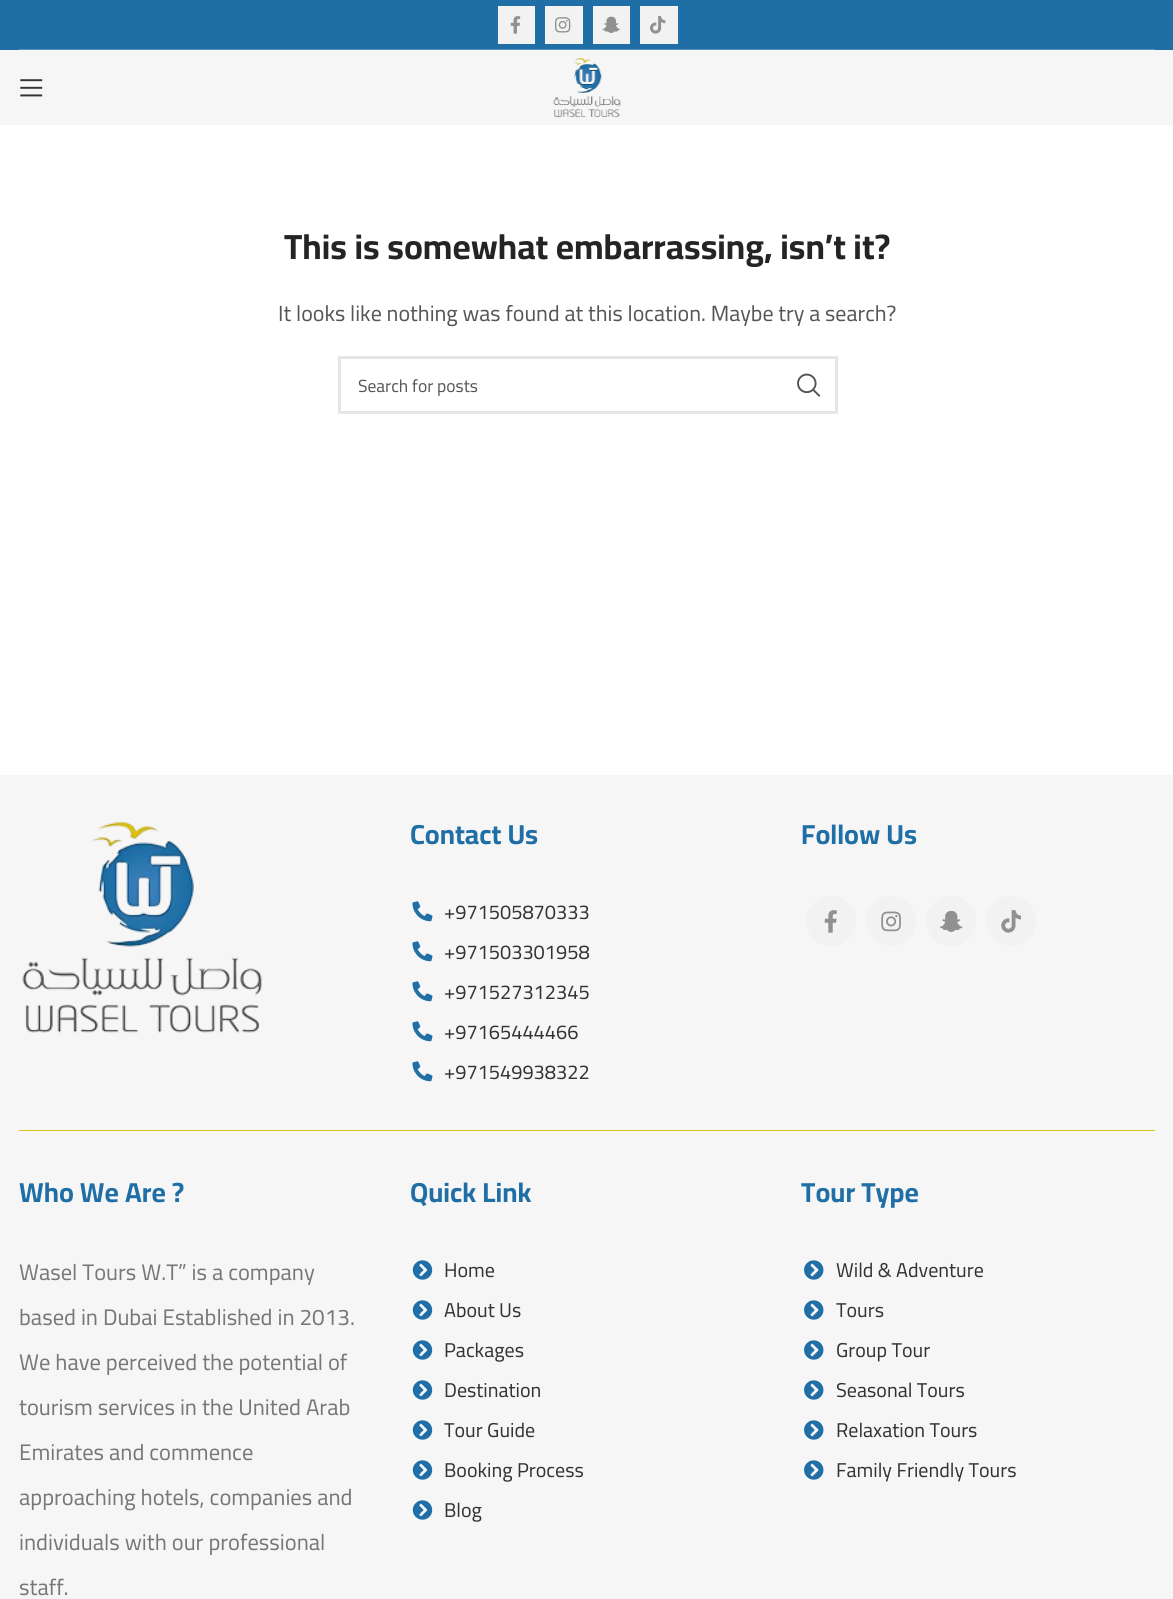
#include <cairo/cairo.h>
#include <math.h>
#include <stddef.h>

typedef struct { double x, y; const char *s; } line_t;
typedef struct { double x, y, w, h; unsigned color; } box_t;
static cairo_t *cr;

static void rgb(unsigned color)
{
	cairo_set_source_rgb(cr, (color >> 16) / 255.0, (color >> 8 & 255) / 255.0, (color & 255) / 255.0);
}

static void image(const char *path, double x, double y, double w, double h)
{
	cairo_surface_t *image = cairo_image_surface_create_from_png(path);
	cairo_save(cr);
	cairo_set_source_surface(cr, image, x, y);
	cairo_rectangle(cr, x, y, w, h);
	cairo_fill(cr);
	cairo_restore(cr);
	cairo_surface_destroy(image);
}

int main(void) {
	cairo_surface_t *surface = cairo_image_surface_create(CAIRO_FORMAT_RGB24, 1173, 1599);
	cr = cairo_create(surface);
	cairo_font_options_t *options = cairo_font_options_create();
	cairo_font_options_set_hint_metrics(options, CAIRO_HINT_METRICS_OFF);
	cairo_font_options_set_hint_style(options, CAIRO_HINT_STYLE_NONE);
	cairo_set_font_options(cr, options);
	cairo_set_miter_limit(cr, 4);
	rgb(0xffffff);
	cairo_paint(cr);
	{
		static const box_t items[] = {
			{0, 0, 1173, 50, 0x1f6fa6},
			{19, 49, 1136, 1, 0x5793bc},
			{498, 6, 37, 38, 0xf2f2f2},
		};
		for (size_t i = 0; i < sizeof items / sizeof *items; i++) {
			rgb(items[i].color);
			cairo_rectangle(cr, items[i].x, items[i].y, items[i].w, items[i].h);
			cairo_fill(cr);
		}
	}
	image("img/1.png", 510, 16, 11, 18);
	cairo_rectangle(cr, 545, 6, 38, 38);
	cairo_fill(cr);
	image("img/2.png", 555, 17, 16, 16);
	cairo_rectangle(cr, 593, 6, 37, 38);
	cairo_fill(cr);
	image("img/3.png", 602, 16, 18, 17);
	cairo_rectangle(cr, 640, 6, 38, 38);
	cairo_fill(cr);
	image("img/4.png", 650, 16, 16, 18);
	rgb(0xf6f6f6);
	cairo_rectangle(cr, 0, 50, 1173, 75);
	cairo_fill(cr);
	image("img/5.png", 20, 79, 23, 18);
	image("img/6.png", 553, 58, 68, 60);
	cairo_rectangle(cr, 339.5, 357.5, 497, 55);
	rgb(0xe6e6e6);
	cairo_set_line_width(cr, 3);
	cairo_stroke(cr);
	image("img/7.png", 797, 373, 24, 24);
	rgb(0xf6f6f6);
	cairo_rectangle(cr, 0, 775, 1173, 824);
	cairo_fill(cr);
	image("img/8.png", 22, 821, 240, 212);
	image("img/9.png", 412, 901, 21, 21);
	image("img/9.png", 412, 941, 21, 21);
	image("img/9.png", 412, 981, 21, 21);
	image("img/9.png", 412, 1021, 21, 21);
	image("img/9.png", 412, 1061, 21, 21);
	rgb(0xf2f2f2);
	cairo_arc(cr, 831, 921, 25, 0, 2 * M_PI);
	cairo_fill(cr);
	image("img/10.png", 824, 910, 13, 23);
	cairo_arc(cr, 891, 921, 25, 0, 2 * M_PI);
	cairo_fill(cr);
	image("img/11.png", 881, 911, 20, 21);
	cairo_arc(cr, 951, 921, 25, 0, 2 * M_PI);
	cairo_fill(cr);
	image("img/12.png", 940, 910, 23, 22);
	cairo_arc(cr, 1011, 921, 25, 0, 2 * M_PI);
	cairo_fill(cr);
	image("img/13.png", 1001, 910, 20, 23);
	rgb(0xdbc315);
	cairo_rectangle(cr, 19, 1130, 1136, 1);
	cairo_fill(cr);
	image("img/14.png", 412, 1260, 21, 20);
	image("img/14.png", 412, 1300, 21, 20);
	image("img/14.png", 412, 1340, 21, 20);
	image("img/14.png", 412, 1380, 21, 20);
	image("img/14.png", 412, 1420, 21, 20);
	image("img/14.png", 412, 1460, 21, 20);
	image("img/14.png", 412, 1500, 21, 20);
	image("img/15.png", 804, 1260, 20, 20);
	image("img/15.png", 804, 1300, 20, 20);
	image("img/15.png", 804, 1340, 20, 20);
	image("img/15.png", 804, 1380, 20, 20);
	image("img/15.png", 804, 1420, 20, 20);
	image("img/15.png", 804, 1460, 20, 20);
	cairo_select_font_face(cr, "Cairo", CAIRO_FONT_SLANT_NORMAL, CAIRO_FONT_WEIGHT_BOLD);
	cairo_set_font_size(cr, 35);
	rgb(0x242424);
	cairo_move_to(cr, 284, 259);
	cairo_show_text(cr, "This is somewhat embarrassing, isn’t it?");
	cairo_select_font_face(cr, "Cairo", CAIRO_FONT_SLANT_NORMAL, CAIRO_FONT_WEIGHT_NORMAL);
	cairo_set_font_size(cr, 22);
	rgb(0x565656);
	cairo_move_to(cr, 278, 321);
	cairo_show_text(cr, "It looks like nothing was found at this location. Maybe try a search?");
	cairo_set_font_size(cr, 17.5);
	cairo_move_to(cr, 358, 392);
	cairo_show_text(cr, "Search for posts");
	cairo_select_font_face(cr, "Cairo", CAIRO_FONT_SLANT_NORMAL, CAIRO_FONT_WEIGHT_BOLD);
	cairo_set_font_size(cr, 27.5);
	rgb(0x1f6fa6);
	cairo_move_to(cr, 410, 844);
	cairo_show_text(cr, "Contact Us");
	cairo_select_font_face(cr, "Cairo", CAIRO_FONT_SLANT_NORMAL, CAIRO_FONT_WEIGHT_NORMAL);
	cairo_set_font_size(cr, 20);
	rgb(0x333333);
	{
		static const line_t items[] = {
			{444, 919, "+971505870333"},
			{444, 959, "+971503301958"},
			{444, 999, "+971527312345"},
			{444, 1039, "+97165444466"},
			{444, 1079, "+971549938322"},
		};
		for (size_t i = 0; i < sizeof items / sizeof *items; i++) {
			cairo_move_to(cr, items[i].x, items[i].y);
			cairo_show_text(cr, items[i].s);
		}
	}
	cairo_select_font_face(cr, "Cairo", CAIRO_FONT_SLANT_NORMAL, CAIRO_FONT_WEIGHT_BOLD);
	cairo_set_font_size(cr, 27.5);
	rgb(0x1f6fa6);
	cairo_move_to(cr, 801, 844);
	cairo_show_text(cr, "Follow Us");
	cairo_move_to(cr, 19, 1202);
	cairo_show_text(cr, "Who We Are ?");
	cairo_select_font_face(cr, "Cairo", CAIRO_FONT_SLANT_NORMAL, CAIRO_FONT_WEIGHT_NORMAL);
	cairo_set_font_size(cr, 22.5);
	rgb(0x777777);
	{
		static const line_t items[] = {
			{19, 1280, "Wasel Tours W.T” is a company"},
			{19, 1325, "based in Dubai Established in 2013."},
			{19, 1370, "We have perceived the potential of"},
			{19, 1415, "tourism services in the United Arab"},
			{19, 1460, "Emirates and commence"},
			{19, 1505, "approaching hotels, companies and"},
			{19, 1550, "individuals with our professional"},
			{19, 1595, "staff."},
		};
		for (size_t i = 0; i < sizeof items / sizeof *items; i++) {
			cairo_move_to(cr, items[i].x, items[i].y);
			cairo_show_text(cr, items[i].s);
		}
	}
	cairo_select_font_face(cr, "Cairo", CAIRO_FONT_SLANT_NORMAL, CAIRO_FONT_WEIGHT_BOLD);
	cairo_set_font_size(cr, 27.5);
	rgb(0x1f6fa6);
	cairo_move_to(cr, 410, 1202);
	cairo_show_text(cr, "Quick Link");
	cairo_select_font_face(cr, "Cairo", CAIRO_FONT_SLANT_NORMAL, CAIRO_FONT_WEIGHT_NORMAL);
	cairo_set_font_size(cr, 20);
	rgb(0x333333);
	{
		static const line_t items[] = {
			{444, 1277, "Home"},
			{444, 1317, "About Us"},
			{444, 1357, "Packages"},
			{444, 1397, "Destination"},
			{444, 1437, "Tour Guide"},
			{444, 1477, "Booking Process"},
			{444, 1517, "Blog"},
		};
		for (size_t i = 0; i < sizeof items / sizeof *items; i++) {
			cairo_move_to(cr, items[i].x, items[i].y);
			cairo_show_text(cr, items[i].s);
		}
	}
	cairo_select_font_face(cr, "Cairo", CAIRO_FONT_SLANT_NORMAL, CAIRO_FONT_WEIGHT_BOLD);
	cairo_set_font_size(cr, 27.5);
	rgb(0x1f6fa6);
	cairo_move_to(cr, 801, 1202);
	cairo_show_text(cr, "Tour Type");
	cairo_select_font_face(cr, "Cairo", CAIRO_FONT_SLANT_NORMAL, CAIRO_FONT_WEIGHT_NORMAL);
	cairo_set_font_size(cr, 20);
	rgb(0x333333);
	{
		static const line_t items[] = {
			{836, 1277, "Wild & Adventure"},
			{836, 1317, "Tours"},
			{836, 1357, "Group Tour"},
			{836, 1397, "Seasonal Tours"},
			{836, 1437, "Relaxation Tours"},
			{836, 1477, "Family Friendly Tours"},
		};
		for (size_t i = 0; i < sizeof items / sizeof *items; i++) {
			cairo_move_to(cr, items[i].x, items[i].y);
			cairo_show_text(cr, items[i].s);
		}
	}
	cairo_surface_write_to_png(surface, "page.png");
	cairo_font_options_destroy(options);
	cairo_destroy(cr);
	cairo_surface_destroy(surface);
	return 0;
}
